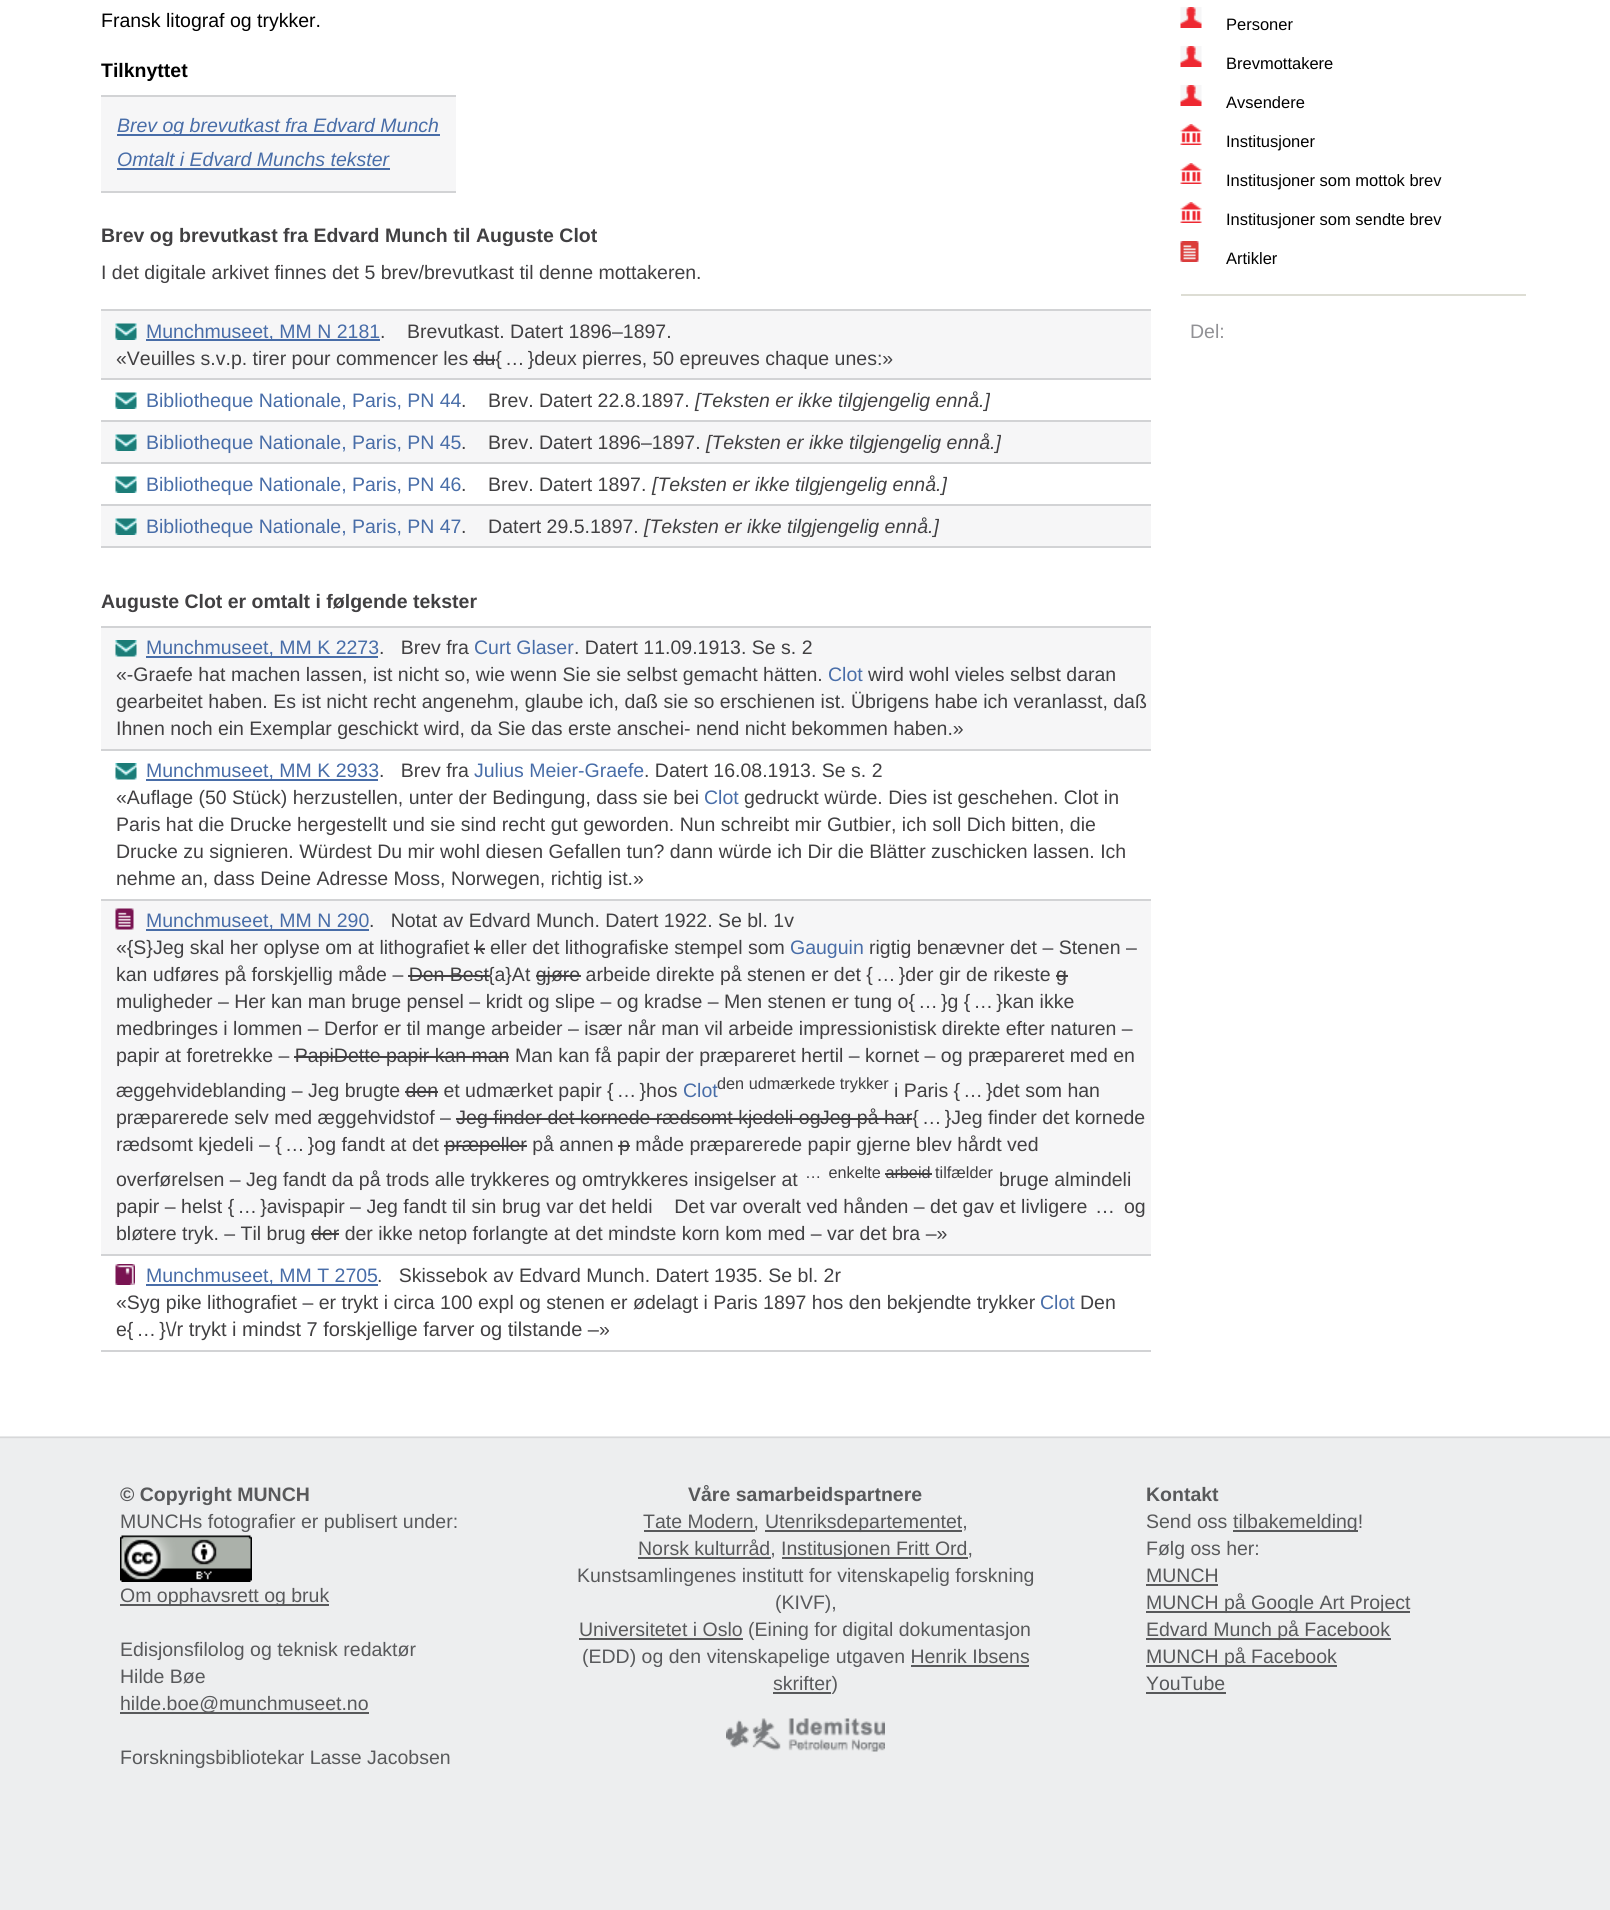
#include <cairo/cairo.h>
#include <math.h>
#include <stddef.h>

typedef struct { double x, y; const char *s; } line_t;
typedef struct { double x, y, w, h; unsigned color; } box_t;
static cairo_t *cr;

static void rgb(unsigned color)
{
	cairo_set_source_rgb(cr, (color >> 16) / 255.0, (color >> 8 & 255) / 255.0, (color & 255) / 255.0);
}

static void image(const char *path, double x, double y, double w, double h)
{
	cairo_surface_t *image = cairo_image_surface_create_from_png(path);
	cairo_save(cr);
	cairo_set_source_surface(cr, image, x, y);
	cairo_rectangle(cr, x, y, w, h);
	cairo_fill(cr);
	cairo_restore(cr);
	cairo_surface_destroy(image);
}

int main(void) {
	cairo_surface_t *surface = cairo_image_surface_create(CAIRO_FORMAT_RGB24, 1610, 1910);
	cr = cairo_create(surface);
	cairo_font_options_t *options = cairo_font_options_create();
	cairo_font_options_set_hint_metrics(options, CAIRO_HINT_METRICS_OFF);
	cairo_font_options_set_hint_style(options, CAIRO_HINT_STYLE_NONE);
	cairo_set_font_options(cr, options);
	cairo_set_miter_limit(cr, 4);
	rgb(0xffffff);
	cairo_paint(cr);
	{
		static const box_t items[] = {
			{101, 97, 355, 94, 0xf6f6f7},
			{101, 95, 355, 2, 0xd2d3d5},
			{101, 191, 355, 2, 0xd2d3d5},
			{117, 134, 323, 2, 0x486da8},
			{117, 168, 273, 2, 0x486da8},
			{101, 546, 1050, 2, 0xd2d3d5},
			{101, 311, 1050, 67, 0xf6f6f7},
			{101, 309, 1050, 2, 0xd2d3d5},
		};
		for (size_t i = 0; i < sizeof items / sizeof *items; i++) {
			rgb(items[i].color);
			cairo_rectangle(cr, items[i].x, items[i].y, items[i].w, items[i].h);
			cairo_fill(cr);
		}
	}
	image("img/1.png", 115, 323, 22, 17);
	{
		static const box_t items[] = {
			{146, 339, 234, 2, 0x486da8},
			{473, 359, 22, 2, 0x414042},
			{101, 378, 1050, 2, 0xd2d3d5},
		};
		for (size_t i = 0; i < sizeof items / sizeof *items; i++) {
			rgb(items[i].color);
			cairo_rectangle(cr, items[i].x, items[i].y, items[i].w, items[i].h);
			cairo_fill(cr);
		}
	}
	image("img/2.png", 115, 392, 22, 17);
	rgb(0xf6f6f7);
	cairo_rectangle(cr, 101, 422, 1050, 40);
	cairo_fill(cr);
	rgb(0xd2d3d5);
	cairo_rectangle(cr, 101, 420, 1050, 2);
	cairo_fill(cr);
	image("img/1.png", 115, 434, 22, 17);
	cairo_rectangle(cr, 101, 462, 1050, 2);
	cairo_fill(cr);
	image("img/2.png", 115, 476, 22, 17);
	rgb(0xf6f6f7);
	cairo_rectangle(cr, 101, 506, 1050, 40);
	cairo_fill(cr);
	rgb(0xd2d3d5);
	cairo_rectangle(cr, 101, 504, 1050, 2);
	cairo_fill(cr);
	image("img/1.png", 115, 518, 22, 17);
	{
		static const box_t items[] = {
			{101, 1350, 1050, 2, 0xd2d3d5},
			{101, 628, 1050, 121, 0xf6f6f7},
			{101, 626, 1050, 2, 0xd2d3d5},
		};
		for (size_t i = 0; i < sizeof items / sizeof *items; i++) {
			rgb(items[i].color);
			cairo_rectangle(cr, items[i].x, items[i].y, items[i].w, items[i].h);
			cairo_fill(cr);
		}
	}
	image("img/3.png", 115, 640, 22, 17);
	rgb(0x486da8);
	cairo_rectangle(cr, 146, 656, 232, 2);
	cairo_fill(cr);
	rgb(0xd2d3d5);
	cairo_rectangle(cr, 101, 749, 1050, 2);
	cairo_fill(cr);
	image("img/4.png", 115, 763, 22, 17);
	{
		static const box_t items[] = {
			{146, 779, 232, 2, 0x486da8},
			{101, 901, 1050, 353, 0xf6f6f7},
			{101, 899, 1050, 2, 0xd2d3d5},
		};
		for (size_t i = 0; i < sizeof items / sizeof *items; i++) {
			rgb(items[i].color);
			cairo_rectangle(cr, items[i].x, items[i].y, items[i].w, items[i].h);
			cairo_fill(cr);
		}
	}
	image("img/5.png", 115, 908, 19, 22);
	{
		static const box_t items[] = {
			{146, 929, 223, 2, 0x486da8},
			{474, 948, 11, 2, 0x414042},
			{408, 975, 81, 2, 0x414042},
			{536, 975, 45, 2, 0x414042},
			{1056, 975, 12, 2, 0x414042},
			{294, 1056, 215, 2, 0x414042},
			{405, 1091, 33, 2, 0x414042},
			{456, 1118, 365, 2, 0x414042},
			{821, 1118, 91, 2, 0x414042},
			{444, 1145, 83, 2, 0x414042},
			{618, 1145, 12, 2, 0x414042},
			{885, 1173, 47, 2, 0x414042},
			{311, 1233, 28, 2, 0x414042},
			{101, 1254, 1050, 2, 0xd2d3d5},
		};
		for (size_t i = 0; i < sizeof items / sizeof *items; i++) {
			rgb(items[i].color);
			cairo_rectangle(cr, items[i].x, items[i].y, items[i].w, items[i].h);
			cairo_fill(cr);
		}
	}
	image("img/6.png", 115, 1264, 20, 21);
	rgb(0x486da8);
	cairo_rectangle(cr, 146, 1284, 232, 2);
	cairo_fill(cr);
	image("img/7.png", 1180, 7, 22, 21);
	image("img/7.png", 1180, 46, 22, 21);
	image("img/7.png", 1180, 85, 22, 21);
	image("img/8.png", 1180, 124, 22, 21);
	image("img/8.png", 1180, 163, 22, 21);
	image("img/8.png", 1180, 202, 22, 21);
	image("img/9.png", 1180, 241, 19, 21);
	rgb(0xddddd4);
	cairo_rectangle(cr, 1181, 294, 345, 2);
	cairo_fill(cr);
	image("img/10.png", 0, 1436, 1610, 474);
	image("img/11.png", 120, 1535, 132, 47);
	{
		static const box_t items[] = {
			{120, 1604, 209, 2, 0x58595b},
			{120, 1712, 249, 2, 0x58595b},
			{644, 1530, 111, 2, 0x58595b},
			{765, 1530, 197, 2, 0x58595b},
			{638, 1557, 133, 2, 0x58595b},
			{782, 1557, 186, 2, 0x58595b},
			{579, 1638, 164, 2, 0x58595b},
			{911, 1665, 118, 2, 0x58595b},
			{773, 1692, 58, 2, 0x58595b},
		};
		for (size_t i = 0; i < sizeof items / sizeof *items; i++) {
			rgb(items[i].color);
			cairo_rectangle(cr, items[i].x, items[i].y, items[i].w, items[i].h);
			cairo_fill(cr);
		}
	}
	image("img/12.png", 726, 1718, 159, 34);
	{
		static const box_t items[] = {
			{1233, 1530, 125, 2, 0x58595b},
			{1146, 1584, 72, 2, 0x58595b},
			{1146, 1611, 264, 2, 0x58595b},
			{1146, 1638, 245, 2, 0x58595b},
			{1146, 1665, 191, 2, 0x58595b},
			{1146, 1692, 80, 2, 0x58595b},
		};
		for (size_t i = 0; i < sizeof items / sizeof *items; i++) {
			rgb(items[i].color);
			cairo_rectangle(cr, items[i].x, items[i].y, items[i].w, items[i].h);
			cairo_fill(cr);
		}
	}
	cairo_select_font_face(cr, "Liberation Sans", CAIRO_FONT_SLANT_NORMAL, CAIRO_FONT_WEIGHT_NORMAL);
	cairo_set_font_size(cr, 19.5);
	rgb(0x000000);
	cairo_move_to(cr, 101, 27);
	cairo_show_text(cr, "Fransk litograf og trykker.");
	cairo_select_font_face(cr, "Liberation Sans", CAIRO_FONT_SLANT_NORMAL, CAIRO_FONT_WEIGHT_BOLD);
	cairo_move_to(cr, 101, 77);
	cairo_show_text(cr, "Tilknyttet");
	cairo_select_font_face(cr, "Liberation Sans", CAIRO_FONT_SLANT_ITALIC, CAIRO_FONT_WEIGHT_NORMAL);
	rgb(0x486da8);
	cairo_move_to(cr, 117, 132);
	cairo_show_text(cr, "Brev og brevutkast fra Edvard Munch");
	cairo_move_to(cr, 117, 166);
	cairo_show_text(cr, "Omtalt i Edvard Munchs tekster");
	cairo_select_font_face(cr, "Liberation Sans", CAIRO_FONT_SLANT_NORMAL, CAIRO_FONT_WEIGHT_BOLD);
	rgb(0x414042);
	cairo_move_to(cr, 101, 242);
	cairo_show_text(cr, "Brev og brevutkast fra Edvard Munch til Auguste Clot");
	cairo_select_font_face(cr, "Liberation Sans", CAIRO_FONT_SLANT_NORMAL, CAIRO_FONT_WEIGHT_NORMAL);
	cairo_move_to(cr, 101, 279);
	cairo_show_text(cr, "I det digitale arkivet finnes det 5 brev/brevutkast til denne mottakeren.");
	rgb(0x486da8);
	cairo_move_to(cr, 146, 338);
	cairo_show_text(cr, "Munchmuseet, MM N 2181");
	rgb(0x414042);
	cairo_move_to(cr, 380, 338);
	cairo_show_text(cr, ".    Brevutkast. Datert 1896–1897.");
	cairo_move_to(cr, 116, 365);
	cairo_show_text(cr, "«Veuilles s.v.p. tirer pour commencer les du{ … }deux pierres, 50 epreuves chaque unes:»");
	rgb(0x486da8);
	cairo_move_to(cr, 146, 407);
	cairo_show_text(cr, "Bibliotheque Nationale, Paris, PN 44");
	rgb(0x414042);
	cairo_move_to(cr, 461, 407);
	cairo_show_text(cr, ".    Brev. Datert 22.8.1897.");
	cairo_select_font_face(cr, "Liberation Sans", CAIRO_FONT_SLANT_ITALIC, CAIRO_FONT_WEIGHT_NORMAL);
	cairo_move_to(cr, 695, 407);
	cairo_show_text(cr, "[Teksten er ikke tilgjengelig ennå.]");
	cairo_select_font_face(cr, "Liberation Sans", CAIRO_FONT_SLANT_NORMAL, CAIRO_FONT_WEIGHT_NORMAL);
	rgb(0x486da8);
	cairo_move_to(cr, 146, 449);
	cairo_show_text(cr, "Bibliotheque Nationale, Paris, PN 45");
	rgb(0x414042);
	cairo_move_to(cr, 461, 449);
	cairo_show_text(cr, ".    Brev. Datert 1896–1897.");
	cairo_select_font_face(cr, "Liberation Sans", CAIRO_FONT_SLANT_ITALIC, CAIRO_FONT_WEIGHT_NORMAL);
	cairo_move_to(cr, 706, 449);
	cairo_show_text(cr, "[Teksten er ikke tilgjengelig ennå.]");
	cairo_select_font_face(cr, "Liberation Sans", CAIRO_FONT_SLANT_NORMAL, CAIRO_FONT_WEIGHT_NORMAL);
	rgb(0x486da8);
	cairo_move_to(cr, 146, 491);
	cairo_show_text(cr, "Bibliotheque Nationale, Paris, PN 46");
	rgb(0x414042);
	cairo_move_to(cr, 461, 491);
	cairo_show_text(cr, ".    Brev. Datert 1897.");
	cairo_select_font_face(cr, "Liberation Sans", CAIRO_FONT_SLANT_ITALIC, CAIRO_FONT_WEIGHT_NORMAL);
	cairo_move_to(cr, 652, 491);
	cairo_show_text(cr, "[Teksten er ikke tilgjengelig ennå.]");
	cairo_select_font_face(cr, "Liberation Sans", CAIRO_FONT_SLANT_NORMAL, CAIRO_FONT_WEIGHT_NORMAL);
	rgb(0x486da8);
	cairo_move_to(cr, 146, 533);
	cairo_show_text(cr, "Bibliotheque Nationale, Paris, PN 47");
	rgb(0x414042);
	cairo_move_to(cr, 461, 533);
	cairo_show_text(cr, ".    Datert 29.5.1897.");
	cairo_select_font_face(cr, "Liberation Sans", CAIRO_FONT_SLANT_ITALIC, CAIRO_FONT_WEIGHT_NORMAL);
	cairo_move_to(cr, 644, 533);
	cairo_show_text(cr, "[Teksten er ikke tilgjengelig ennå.]");
	cairo_select_font_face(cr, "Liberation Sans", CAIRO_FONT_SLANT_NORMAL, CAIRO_FONT_WEIGHT_BOLD);
	cairo_move_to(cr, 101, 608);
	cairo_show_text(cr, "Auguste Clot er omtalt i følgende tekster");
	cairo_select_font_face(cr, "Liberation Sans", CAIRO_FONT_SLANT_NORMAL, CAIRO_FONT_WEIGHT_NORMAL);
	rgb(0x486da8);
	cairo_move_to(cr, 146, 654);
	cairo_show_text(cr, "Munchmuseet, MM K 2273");
	rgb(0x414042);
	cairo_move_to(cr, 379, 654);
	cairo_show_text(cr, ".   Brev fra");
	rgb(0x486da8);
	cairo_move_to(cr, 474, 654);
	cairo_show_text(cr, "Curt Glaser");
	rgb(0x414042);
	cairo_move_to(cr, 574, 654);
	cairo_show_text(cr, ". Datert 11.09.1913. Se s. 2");
	cairo_move_to(cr, 116, 681);
	cairo_show_text(cr, "«-Graefe hat machen lassen, ist nicht so, wie wenn Sie sie selbst gemacht hätten.");
	rgb(0x486da8);
	cairo_move_to(cr, 828, 681);
	cairo_show_text(cr, "Clot");
	rgb(0x414042);
	{
		static const line_t items[] = {
			{868, 681, "wird wohl vieles selbst daran"},
			{116, 708, "gearbeitet haben. Es ist nicht recht angenehm, glaube ich, daß sie so erschienen ist. Übrigens habe ich veranlasst, daß"},
			{116, 735, "Ihnen noch ein Exemplar geschickt wird, da Sie das erste anschei- nend nicht bekommen haben.»"},
		};
		for (size_t i = 0; i < sizeof items / sizeof *items; i++) {
			cairo_move_to(cr, items[i].x, items[i].y);
			cairo_show_text(cr, items[i].s);
		}
	}
	rgb(0x486da8);
	cairo_move_to(cr, 146, 777);
	cairo_show_text(cr, "Munchmuseet, MM K 2933");
	rgb(0x414042);
	cairo_move_to(cr, 379, 777);
	cairo_show_text(cr, ".   Brev fra");
	rgb(0x486da8);
	cairo_move_to(cr, 474, 777);
	cairo_show_text(cr, "Julius Meier-Graefe");
	rgb(0x414042);
	cairo_move_to(cr, 644, 777);
	cairo_show_text(cr, ". Datert 16.08.1913. Se s. 2");
	cairo_move_to(cr, 116, 804);
	cairo_show_text(cr, "«Auflage (50 Stück) herzustellen, unter der Bedingung, dass sie bei");
	rgb(0x486da8);
	cairo_move_to(cr, 704, 804);
	cairo_show_text(cr, "Clot");
	rgb(0x414042);
	{
		static const line_t items[] = {
			{744, 804, "gedruckt würde. Dies ist geschehen. Clot in"},
			{116, 831, "Paris hat die Drucke hergestellt und sie sind recht gut geworden. Nun schreibt mir Gutbier, ich soll Dich bitten, die"},
			{116, 858, "Drucke zu signieren. Würdest Du mir wohl diesen Gefallen tun? dann würde ich Dir die Blätter zuschicken lassen. Ich"},
			{116, 885, "nehme an, dass Deine Adresse Moss, Norwegen, richtig ist.»"},
		};
		for (size_t i = 0; i < sizeof items / sizeof *items; i++) {
			cairo_move_to(cr, items[i].x, items[i].y);
			cairo_show_text(cr, items[i].s);
		}
	}
	rgb(0x486da8);
	cairo_move_to(cr, 146, 927);
	cairo_show_text(cr, "Munchmuseet, MM N 290");
	rgb(0x414042);
	cairo_move_to(cr, 369, 927);
	cairo_show_text(cr, ".   Notat av Edvard Munch. Datert 1922. Se bl. 1v");
	cairo_move_to(cr, 116, 954);
	cairo_show_text(cr, "«{S}Jeg skal her oplyse om at lithografiet k eller det lithografiske stempel som");
	rgb(0x486da8);
	cairo_move_to(cr, 790, 954);
	cairo_show_text(cr, "Gauguin");
	rgb(0x414042);
	{
		static const line_t items[] = {
			{869, 954, "rigtig benævner det – Stenen –"},
			{116, 981, "kan udføres på forskjellig måde – Den Best"},
			{488, 981, "{a}At gjøre arbeide direkte på stenen er det { … }der gir de rikeste g"},
			{116, 1008, "muligheder – Her kan man bruge pensel – kridt og slipe – og kradse – Men stenen er tung o{ … }g { … }kan ikke"},
			{116, 1035, "medbringes i lommen – Derfor er til mange arbeider – især når man vil arbeide impressionistisk direkte efter naturen –"},
			{116, 1062, "papir at foretrekke – PapiDette papir kan man Man kan få papir der præpareret hertil – kornet – og præpareret med en"},
			{116, 1097, "æggehvideblanding – Jeg brugte den et udmærket papir { … }hos"},
		};
		for (size_t i = 0; i < sizeof items / sizeof *items; i++) {
			cairo_move_to(cr, items[i].x, items[i].y);
			cairo_show_text(cr, items[i].s);
		}
	}
	rgb(0x486da8);
	cairo_move_to(cr, 683, 1097);
	cairo_show_text(cr, "Clot");
	cairo_set_font_size(cr, 16.25);
	rgb(0x414042);
	cairo_move_to(cr, 717, 1089);
	cairo_show_text(cr, "den udmærkede trykker");
	cairo_set_font_size(cr, 19.5);
	{
		static const line_t items[] = {
			{894, 1097, "i Paris { … }det som han"},
			{116, 1124, "præparerede selv med æggehvidstof – Jeg finder det kornede rædsomt kjedeli og"},
			{820, 1124, "Jeg på har{ … }Jeg finder det kornede"},
			{116, 1151, "rædsomt kjedeli – { … }og fandt at det præpeller på annen p måde præparerede papir gjerne blev hårdt ved"},
			{116, 1186, "overførelsen – Jeg fandt da på trods alle trykkeres og omtrykkeres insigelser at"},
		};
		for (size_t i = 0; i < sizeof items / sizeof *items; i++) {
			cairo_move_to(cr, items[i].x, items[i].y);
			cairo_show_text(cr, items[i].s);
		}
	}
	cairo_set_font_size(cr, 16.25);
	cairo_move_to(cr, 805, 1178);
	cairo_show_text(cr, "…  enkelte arbeid tilfælder");
	cairo_set_font_size(cr, 19.5);
	cairo_move_to(cr, 999, 1186);
	cairo_show_text(cr, "bruge almindeli");
	cairo_move_to(cr, 116, 1213);
	cairo_show_text(cr, "papir – helst { … }avispapir – Jeg fandt til sin brug var det heldi    Det var overalt ved hånden – det gav et livligere");
	cairo_set_font_size(cr, 20);
	cairo_move_to(cr, 1095, 1213);
	cairo_show_text(cr, "…");
	cairo_set_font_size(cr, 19.5);
	cairo_move_to(cr, 1124, 1213);
	cairo_show_text(cr, "og");
	cairo_move_to(cr, 116, 1240);
	cairo_show_text(cr, "bløtere tryk. – Til brug der der ikke netop forlangte at det mindste korn kom med – var det bra –»");
	rgb(0x486da8);
	cairo_move_to(cr, 146, 1282);
	cairo_show_text(cr, "Munchmuseet, MM T 2705");
	rgb(0x414042);
	cairo_move_to(cr, 377, 1282);
	cairo_show_text(cr, ".   Skissebok av Edvard Munch. Datert 1935. Se bl. 2r");
	cairo_move_to(cr, 116, 1309);
	cairo_show_text(cr, "«Syg pike lithografiet – er trykt i circa 100 expl og stenen er ødelagt i Paris 1897 hos den bekjendte trykker");
	rgb(0x486da8);
	cairo_move_to(cr, 1040, 1309);
	cairo_show_text(cr, "Clot");
	rgb(0x414042);
	cairo_move_to(cr, 1080, 1309);
	cairo_show_text(cr, "Den");
	cairo_move_to(cr, 116, 1336);
	cairo_show_text(cr, "e{ … }\\");
	cairo_set_font_size(cr, 20);
	cairo_move_to(cr, 171, 1336);
	cairo_show_text(cr, "/r trykt i mindst 7 forskjellige farver og tilstande –");
	cairo_set_font_size(cr, 19.5);
	cairo_move_to(cr, 599, 1336);
	cairo_show_text(cr, "»");
	cairo_set_font_size(cr, 16.5);
	rgb(0x000000);
	{
		static const line_t items[] = {
			{1226, 30, "Personer"},
			{1226, 69, "Brevmottakere"},
			{1226, 108, "Avsendere"},
			{1226, 147, "Institusjoner"},
			{1226, 186, "Institusjoner som mottok brev"},
			{1226, 225, "Institusjoner som sendte brev"},
			{1226, 264, "Artikler"},
		};
		for (size_t i = 0; i < sizeof items / sizeof *items; i++) {
			cairo_move_to(cr, items[i].x, items[i].y);
			cairo_show_text(cr, items[i].s);
		}
	}
	cairo_set_font_size(cr, 19.5);
	rgb(0x919195);
	cairo_move_to(cr, 1190, 338);
	cairo_show_text(cr, "Del:");
	cairo_select_font_face(cr, "Liberation Sans", CAIRO_FONT_SLANT_NORMAL, CAIRO_FONT_WEIGHT_BOLD);
	rgb(0x58595b);
	cairo_move_to(cr, 120, 1501);
	cairo_show_text(cr, "© Copyright MUNCH");
	cairo_select_font_face(cr, "Liberation Sans", CAIRO_FONT_SLANT_NORMAL, CAIRO_FONT_WEIGHT_NORMAL);
	{
		static const line_t items[] = {
			{120, 1528, "MUNCHs fotografier er publisert under:"},
			{120, 1602, "Om opphavsrett og bruk"},
			{120, 1656, "Edisjonsfilolog og teknisk redaktør"},
			{120, 1683, "Hilde Bøe"},
			{120, 1710, "hilde.boe@munchmuseet.no"},
			{120, 1764, "Forskningsbibliotekar Lasse Jacobsen"},
		};
		for (size_t i = 0; i < sizeof items / sizeof *items; i++) {
			cairo_move_to(cr, items[i].x, items[i].y);
			cairo_show_text(cr, items[i].s);
		}
	}
	cairo_select_font_face(cr, "Liberation Sans", CAIRO_FONT_SLANT_NORMAL, CAIRO_FONT_WEIGHT_BOLD);
	cairo_move_to(cr, 688, 1501);
	cairo_show_text(cr, "Våre samarbeidspartnere");
	cairo_select_font_face(cr, "Liberation Sans", CAIRO_FONT_SLANT_NORMAL, CAIRO_FONT_WEIGHT_NORMAL);
	{
		static const line_t items[] = {
			{643, 1528, "Tate Modern,"},
			{765, 1528, "Utenriksdepartementet,"},
			{638, 1555, "Norsk kulturråd,"},
			{781, 1555, "Institusjonen Fritt Ord,"},
			{577, 1582, "Kunstsamlingenes institutt for vitenskapelig forskning"},
			{775, 1609, "(KIVF),"},
			{579, 1636, "Universitetet i Oslo (Eining for digital dokumentasjon"},
			{582, 1663, "(EDD) og den vitenskapelige utgaven Henrik Ibsens"},
			{773, 1690, "skrifter)"},
		};
		for (size_t i = 0; i < sizeof items / sizeof *items; i++) {
			cairo_move_to(cr, items[i].x, items[i].y);
			cairo_show_text(cr, items[i].s);
		}
	}
	cairo_select_font_face(cr, "Liberation Sans", CAIRO_FONT_SLANT_NORMAL, CAIRO_FONT_WEIGHT_BOLD);
	cairo_move_to(cr, 1146, 1501);
	cairo_show_text(cr, "Kontakt");
	cairo_select_font_face(cr, "Liberation Sans", CAIRO_FONT_SLANT_NORMAL, CAIRO_FONT_WEIGHT_NORMAL);
	{
		static const line_t items[] = {
			{1146, 1528, "Send oss"},
			{1233, 1528, "tilbakemelding!"},
			{1146, 1555, "Følg oss her:"},
			{1146, 1582, "MUNCH"},
			{1146, 1609, "MUNCH på Google Art Project"},
			{1146, 1636, "Edvard Munch på Facebook"},
			{1146, 1663, "MUNCH på Facebook"},
			{1146, 1690, "YouTube"},
		};
		for (size_t i = 0; i < sizeof items / sizeof *items; i++) {
			cairo_move_to(cr, items[i].x, items[i].y);
			cairo_show_text(cr, items[i].s);
		}
	}
	cairo_surface_write_to_png(surface, "page.png");
	cairo_font_options_destroy(options);
	cairo_destroy(cr);
	cairo_surface_destroy(surface);
	return 0;
}
